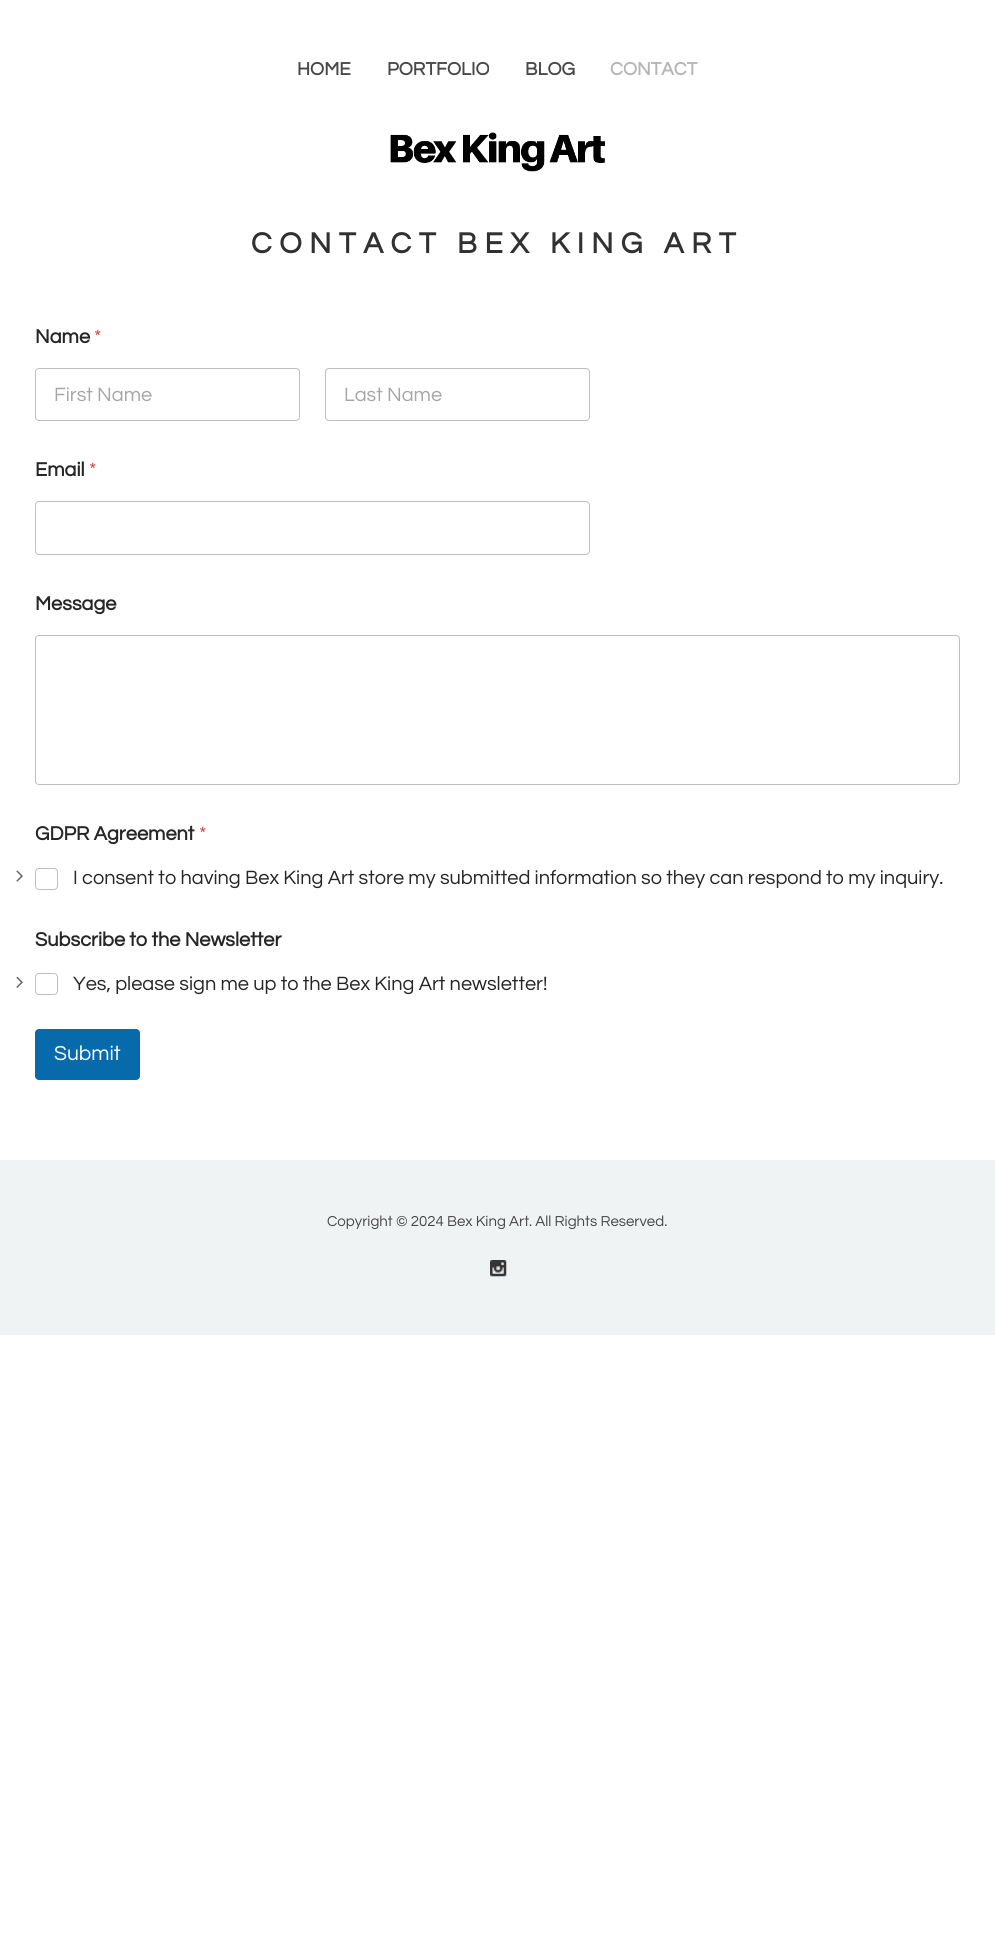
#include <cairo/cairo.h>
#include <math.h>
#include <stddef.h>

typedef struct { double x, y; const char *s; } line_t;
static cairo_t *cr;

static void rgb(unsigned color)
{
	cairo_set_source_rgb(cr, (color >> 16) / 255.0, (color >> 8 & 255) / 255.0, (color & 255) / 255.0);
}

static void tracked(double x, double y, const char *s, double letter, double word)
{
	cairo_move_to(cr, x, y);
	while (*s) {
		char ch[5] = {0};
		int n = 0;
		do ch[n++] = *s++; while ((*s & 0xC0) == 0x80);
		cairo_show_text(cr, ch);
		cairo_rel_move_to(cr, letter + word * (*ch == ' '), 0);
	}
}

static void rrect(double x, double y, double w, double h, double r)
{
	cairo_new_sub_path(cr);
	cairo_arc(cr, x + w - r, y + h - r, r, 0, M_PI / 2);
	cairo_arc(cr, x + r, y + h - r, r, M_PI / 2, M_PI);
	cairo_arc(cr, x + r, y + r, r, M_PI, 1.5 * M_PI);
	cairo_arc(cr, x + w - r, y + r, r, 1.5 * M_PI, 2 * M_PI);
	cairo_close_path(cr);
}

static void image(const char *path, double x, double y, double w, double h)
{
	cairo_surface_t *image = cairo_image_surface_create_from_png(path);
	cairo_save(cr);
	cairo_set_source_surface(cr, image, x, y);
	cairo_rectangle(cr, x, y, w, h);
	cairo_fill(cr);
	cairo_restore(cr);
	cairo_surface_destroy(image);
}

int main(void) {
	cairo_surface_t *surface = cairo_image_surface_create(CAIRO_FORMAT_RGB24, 995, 1951);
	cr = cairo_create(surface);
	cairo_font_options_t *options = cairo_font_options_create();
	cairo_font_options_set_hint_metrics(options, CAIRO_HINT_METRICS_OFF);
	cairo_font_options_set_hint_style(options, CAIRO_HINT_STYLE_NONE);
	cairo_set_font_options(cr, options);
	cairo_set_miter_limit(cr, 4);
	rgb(0xffffff);
	cairo_paint(cr);
	image("img/1.png", 390, 132, 215, 40);
	rrect(35.5, 368.5, 264, 52, 3.5);
	rgb(0xbfbfbf);
	cairo_set_line_width(cr, 1);
	cairo_stroke(cr);
	rrect(325.5, 368.5, 264, 52, 3.5);
	cairo_stroke(cr);
	rrect(35.5, 501.5, 554, 53, 3.5);
	cairo_stroke(cr);
	rrect(35.5, 635.5, 924, 149, 3.5);
	cairo_stroke(cr);
	image("img/2.png", 16, 870, 7, 12);
	rrect(35.5, 868.5, 22, 21, 3.5);
	cairo_stroke(cr);
	image("img/3.png", 16, 976, 7, 12);
	rrect(35.5, 973.5, 22, 21, 3.5);
	cairo_stroke(cr);
	rgb(0x066aab);
	rrect(35, 1029, 105, 51, 4);
	cairo_fill(cr);
	rgb(0xf0f3f3);
	cairo_rectangle(cr, 0, 1160, 995, 175);
	cairo_fill(cr);
	image("img/4.png", 490, 1260, 17, 17);
	cairo_select_font_face(cr, "Questrial", CAIRO_FONT_SLANT_NORMAL, CAIRO_FONT_WEIGHT_BOLD);
	cairo_set_font_size(cr, 18.75);
	rgb(0x484848);
	{
		static const line_t items[] = {
			{297, 75, "HOME"},
			{387, 75, "PORTFOLIO"},
			{525, 75, "BLOG"},
		};
		for (size_t i = 0; i < sizeof items / sizeof *items; i++) {
			cairo_move_to(cr, items[i].x, items[i].y);
			cairo_show_text(cr, items[i].s);
		}
	}
	rgb(0xb5b5b5);
	cairo_move_to(cr, 610, 75);
	cairo_show_text(cr, "CONTACT");
	cairo_set_font_size(cr, 30);
	rgb(0x313131);
	tracked(251, 253, "CONTACT BEX KING ART", 7.5, 0);
	cairo_set_font_size(cr, 20);
	rgb(0x262626);
	cairo_move_to(cr, 35, 343);
	cairo_show_text(cr, "Name");
	cairo_select_font_face(cr, "Questrial", CAIRO_FONT_SLANT_NORMAL, CAIRO_FONT_WEIGHT_NORMAL);
	rgb(0xd63637);
	cairo_move_to(cr, 94, 343);
	cairo_show_text(cr, "*");
	rgb(0xa6a6a6);
	cairo_move_to(cr, 54, 401);
	cairo_show_text(cr, "First Name");
	cairo_move_to(cr, 344, 401);
	cairo_show_text(cr, "Last Name");
	cairo_select_font_face(cr, "Questrial", CAIRO_FONT_SLANT_NORMAL, CAIRO_FONT_WEIGHT_BOLD);
	rgb(0x262626);
	cairo_move_to(cr, 35, 476);
	cairo_show_text(cr, "Email");
	cairo_select_font_face(cr, "Questrial", CAIRO_FONT_SLANT_NORMAL, CAIRO_FONT_WEIGHT_NORMAL);
	rgb(0xd63637);
	cairo_move_to(cr, 89, 476);
	cairo_show_text(cr, "*");
	cairo_select_font_face(cr, "Questrial", CAIRO_FONT_SLANT_NORMAL, CAIRO_FONT_WEIGHT_BOLD);
	rgb(0x262626);
	cairo_move_to(cr, 35, 610);
	cairo_show_text(cr, "Message");
	cairo_move_to(cr, 35, 840);
	cairo_show_text(cr, "GDPR Agreement");
	cairo_select_font_face(cr, "Questrial", CAIRO_FONT_SLANT_NORMAL, CAIRO_FONT_WEIGHT_NORMAL);
	rgb(0xd63637);
	cairo_move_to(cr, 199, 840);
	cairo_show_text(cr, "*");
	rgb(0x262626);
	cairo_move_to(cr, 73, 884);
	cairo_show_text(cr, "I consent to having Bex King Art store my submitted information so they can respond to my inquiry.");
	cairo_select_font_face(cr, "Questrial", CAIRO_FONT_SLANT_NORMAL, CAIRO_FONT_WEIGHT_BOLD);
	cairo_move_to(cr, 35, 946);
	cairo_show_text(cr, "Subscribe to the Newsletter");
	cairo_select_font_face(cr, "Questrial", CAIRO_FONT_SLANT_NORMAL, CAIRO_FONT_WEIGHT_NORMAL);
	cairo_move_to(cr, 73, 990);
	cairo_show_text(cr, "Yes, please sign me up to the Bex King Art newsletter!");
	cairo_set_font_size(cr, 21);
	rgb(0xffffff);
	cairo_move_to(cr, 54, 1060);
	cairo_show_text(cr, "Submit");
	cairo_set_font_size(cr, 15);
	rgb(0x484848);
	cairo_move_to(cr, 327, 1226);
	cairo_show_text(cr, "Copyright © 2024 Bex King Art. All Rights Reserved.");
	cairo_surface_write_to_png(surface, "page.png");
	cairo_font_options_destroy(options);
	cairo_destroy(cr);
	cairo_surface_destroy(surface);
	return 0;
}
